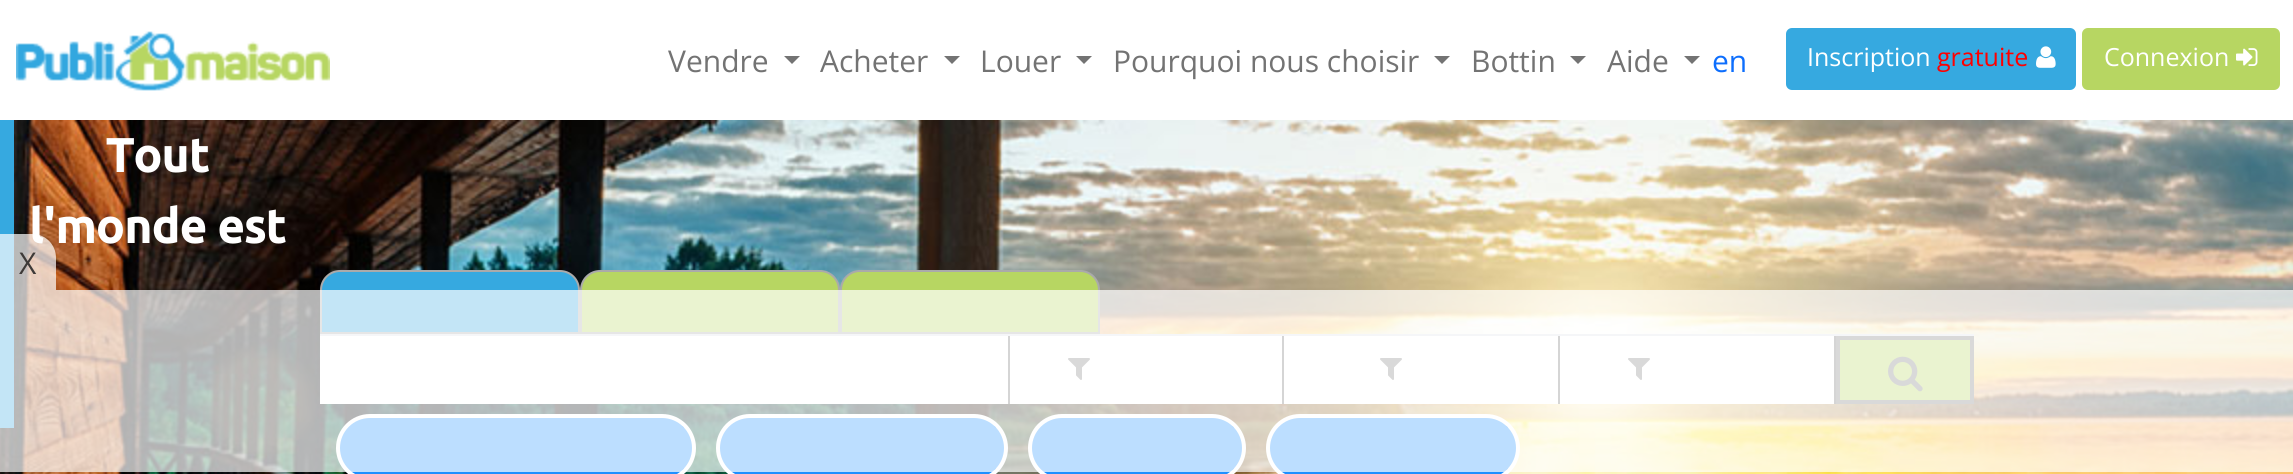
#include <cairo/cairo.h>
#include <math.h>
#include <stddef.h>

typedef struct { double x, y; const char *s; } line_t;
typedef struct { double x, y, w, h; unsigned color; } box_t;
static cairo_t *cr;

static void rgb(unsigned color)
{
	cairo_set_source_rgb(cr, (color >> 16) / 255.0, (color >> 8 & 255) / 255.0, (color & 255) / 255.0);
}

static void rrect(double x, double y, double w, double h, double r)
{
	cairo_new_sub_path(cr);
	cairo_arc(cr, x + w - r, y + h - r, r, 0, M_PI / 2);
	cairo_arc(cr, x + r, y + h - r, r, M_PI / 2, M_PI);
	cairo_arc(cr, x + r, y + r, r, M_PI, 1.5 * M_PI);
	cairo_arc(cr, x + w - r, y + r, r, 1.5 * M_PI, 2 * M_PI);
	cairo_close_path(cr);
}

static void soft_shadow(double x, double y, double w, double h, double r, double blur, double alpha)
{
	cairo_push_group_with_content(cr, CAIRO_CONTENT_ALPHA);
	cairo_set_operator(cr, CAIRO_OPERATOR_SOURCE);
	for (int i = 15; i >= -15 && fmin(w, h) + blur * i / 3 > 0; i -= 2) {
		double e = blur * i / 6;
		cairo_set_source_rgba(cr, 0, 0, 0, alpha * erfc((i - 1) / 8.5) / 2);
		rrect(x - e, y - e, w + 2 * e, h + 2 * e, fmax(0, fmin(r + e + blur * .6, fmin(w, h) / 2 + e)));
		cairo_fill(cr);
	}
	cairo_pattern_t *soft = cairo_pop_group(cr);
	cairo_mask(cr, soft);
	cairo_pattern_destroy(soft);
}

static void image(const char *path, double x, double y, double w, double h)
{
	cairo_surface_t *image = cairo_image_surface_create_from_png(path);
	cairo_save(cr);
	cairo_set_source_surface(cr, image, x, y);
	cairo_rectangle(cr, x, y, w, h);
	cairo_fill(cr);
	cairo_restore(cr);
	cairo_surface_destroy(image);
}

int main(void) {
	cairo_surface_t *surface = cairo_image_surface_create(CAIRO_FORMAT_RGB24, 2293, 474);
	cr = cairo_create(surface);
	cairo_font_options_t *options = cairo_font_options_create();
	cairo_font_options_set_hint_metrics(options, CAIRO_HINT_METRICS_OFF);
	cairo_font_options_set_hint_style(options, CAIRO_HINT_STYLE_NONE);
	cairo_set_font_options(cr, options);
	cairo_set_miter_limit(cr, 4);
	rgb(0xffffff);
	cairo_paint(cr);
	rgb(0x737373);
	cairo_new_path(cr);
	cairo_move_to(cr, 784, 56);
	cairo_line_to(cr, 800, 56);
	cairo_line_to(cr, 792, 64);
	cairo_close_path(cr);
	cairo_fill(cr);
	cairo_new_path(cr);
	cairo_move_to(cr, 944, 56);
	cairo_line_to(cr, 960, 56);
	cairo_line_to(cr, 952, 64);
	cairo_close_path(cr);
	cairo_fill(cr);
	cairo_new_path(cr);
	cairo_move_to(cr, 1076, 56);
	cairo_line_to(cr, 1092, 56);
	cairo_line_to(cr, 1084, 64);
	cairo_close_path(cr);
	cairo_fill(cr);
	cairo_new_path(cr);
	cairo_move_to(cr, 1434, 56);
	cairo_line_to(cr, 1450, 56);
	cairo_line_to(cr, 1442, 64);
	cairo_close_path(cr);
	cairo_fill(cr);
	cairo_new_path(cr);
	cairo_move_to(cr, 1570, 56);
	cairo_line_to(cr, 1586, 56);
	cairo_line_to(cr, 1578, 64);
	cairo_close_path(cr);
	cairo_fill(cr);
	cairo_new_path(cr);
	cairo_move_to(cr, 1684, 56);
	cairo_line_to(cr, 1700, 56);
	cairo_line_to(cr, 1692, 64);
	cairo_close_path(cr);
	cairo_fill(cr);
	rgb(0x36a9e0);
	rrect(1787, 29, 288, 60, 5);
	cairo_fill_preserve(cr);
	cairo_stroke(cr);
	image("img/1.png", 2036, 46, 20, 22);
	rgb(0xb7d662);
	rrect(2083, 29, 196, 60, 5);
	cairo_fill_preserve(cr);
	cairo_stroke(cr);
	image("img/2.png", 2236, 48, 22, 18);
	image("img/3.png", 16, 31, 314, 60);
	image("img/4.png", 0, 120, 2293, 354);
	rgb(0x36a9e0);
	cairo_rectangle(cr, 0, 120, 14, 308);
	cairo_fill(cr);
	rgb(0xdee2e6);
	cairo_rectangle(cr, 320, 334, 1654, 2);
	cairo_fill(cr);
	rgb(0x36a9e0);
	cairo_new_path(cr);
	cairo_move_to(cr, 340, 271);
	cairo_line_to(cr, 560, 271);
	cairo_curve_to(cr, 570.5, 271, 579, 279.5, 579, 290);
	cairo_line_to(cr, 579, 333);
	cairo_line_to(cr, 321, 333);
	cairo_line_to(cr, 321, 290);
	cairo_curve_to(cr, 321, 279.5, 329.5, 271, 340, 271);
	cairo_close_path(cr);
	cairo_fill_preserve(cr);
	rgb(0xaaaaaa);
	cairo_stroke(cr);
	rgb(0xb7d662);
	cairo_new_path(cr);
	cairo_move_to(cr, 600, 271);
	cairo_line_to(cr, 820, 271);
	cairo_curve_to(cr, 830.5, 271, 839, 279.5, 839, 290);
	cairo_line_to(cr, 839, 333);
	cairo_line_to(cr, 581, 333);
	cairo_line_to(cr, 581, 290);
	cairo_curve_to(cr, 581, 279.5, 589.5, 271, 600, 271);
	cairo_close_path(cr);
	cairo_fill_preserve(cr);
	rgb(0xaaaaaa);
	cairo_stroke(cr);
	rgb(0xb7d662);
	cairo_new_path(cr);
	cairo_move_to(cr, 860, 271);
	cairo_line_to(cr, 1080, 271);
	cairo_curve_to(cr, 1090.5, 271, 1099, 279.5, 1099, 290);
	cairo_line_to(cr, 1099, 333);
	cairo_line_to(cr, 841, 333);
	cairo_line_to(cr, 841, 290);
	cairo_curve_to(cr, 841, 279.5, 849.5, 271, 860, 271);
	cairo_close_path(cr);
	cairo_fill_preserve(cr);
	rgb(0xaaaaaa);
	cairo_stroke(cr);
	{
		static const box_t items[] = {
			{320, 336, 1514, 68, 0xffffff},
			{1008, 336, 2, 68, 0x737373},
			{1282, 336, 2, 68, 0x737373},
		};
		for (size_t i = 0; i < sizeof items / sizeof *items; i++) {
			rgb(items[i].color);
			cairo_rectangle(cr, items[i].x, items[i].y, items[i].w, items[i].h);
			cairo_fill(cr);
		}
	}
	image("img/5.png", 1068, 358, 22, 22);
	cairo_rectangle(cr, 1558, 336, 2, 68);
	cairo_fill(cr);
	image("img/5.png", 1380, 358, 22, 22);
	cairo_rectangle(cr, 1834, 336, 2, 68);
	cairo_fill(cr);
	image("img/5.png", 1628, 358, 22, 22);
	rgb(0xb7d662);
	cairo_rectangle(cr, 1838, 338, 134, 64);
	cairo_fill_preserve(cr);
	rgb(0x808080);
	cairo_set_line_width(cr, 4);
	cairo_stroke(cr);
	image("img/6.png", 1888, 356, 35, 36);
	rgb(0x1e90ff);
	rrect(338, 416, 356, 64, 32);
	cairo_fill_preserve(cr);
	rgb(0xffffff);
	cairo_stroke(cr);
	cairo_save(cr);
	rrect(340, 418, 352, 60, 30);
	cairo_clip(cr);
	rgb(0x1e90ff);
	cairo_rectangle(cr, 644, 426, 40, 44);
	cairo_fill(cr);
	cairo_restore(cr);
	rgb(0x1e90ff);
	rrect(718, 416, 288, 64, 32);
	cairo_fill_preserve(cr);
	rgb(0xffffff);
	cairo_stroke(cr);
	cairo_save(cr);
	rrect(720, 418, 284, 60, 30);
	cairo_clip(cr);
	rgb(0x1e90ff);
	cairo_rectangle(cr, 956, 426, 40, 44);
	cairo_fill(cr);
	cairo_restore(cr);
	rgb(0x1e90ff);
	rrect(1030, 416, 214, 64, 32);
	cairo_fill_preserve(cr);
	rgb(0xffffff);
	cairo_stroke(cr);
	cairo_save(cr);
	rrect(1032, 418, 210, 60, 30);
	cairo_clip(cr);
	rgb(0x1e90ff);
	cairo_rectangle(cr, 1194, 426, 40, 44);
	cairo_fill(cr);
	cairo_restore(cr);
	rgb(0x1e90ff);
	rrect(1268, 416, 250, 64, 32);
	cairo_fill_preserve(cr);
	rgb(0xffffff);
	cairo_stroke(cr);
	cairo_save(cr);
	rrect(1270, 418, 246, 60, 30);
	cairo_clip(cr);
	rgb(0x1e90ff);
	cairo_rectangle(cr, 1468, 426, 40, 44);
	cairo_fill(cr);
	cairo_restore(cr);
	cairo_set_source_rgba(cr, 1, 1, 1, 0.7);
	cairo_rectangle(cr, 0, 290, 2293, 182);
	cairo_fill(cr);
	cairo_save(cr);
	cairo_set_fill_rule(cr, CAIRO_FILL_RULE_EVEN_ODD);
	cairo_new_path(cr);
	cairo_move_to(cr, 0, 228);
	cairo_line_to(cr, 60, 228);
	cairo_line_to(cr, 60, 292);
	cairo_line_to(cr, 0, 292);
	cairo_close_path(cr);
	cairo_move_to(cr, 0, 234);
	cairo_line_to(cr, 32, 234);
	cairo_curve_to(cr, 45.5, 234, 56, 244.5, 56, 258);
	cairo_line_to(cr, 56, 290);
	cairo_line_to(cr, 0, 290);
	cairo_close_path(cr);
	cairo_clip(cr);
	rgb(0x000000);
	soft_shadow(0, 232, 56, 56, 24, 1, 0.14);
	cairo_restore(cr);
	cairo_select_font_face(cr, "Open Sans", CAIRO_FONT_SLANT_NORMAL, CAIRO_FONT_WEIGHT_NORMAL);
	cairo_set_font_size(cr, 30);
	rgb(0x737373);
	{
		static const line_t items[] = {
			{668, 72, "Vendre"},
			{820, 72, "Acheter"},
			{980, 72, "Louer"},
			{1113, 72, "Pourquoi nous choisir"},
			{1471, 72, "Bottin"},
			{1607, 72, "Aide"},
		};
		for (size_t i = 0; i < sizeof items / sizeof *items; i++) {
			cairo_move_to(cr, items[i].x, items[i].y);
			cairo_show_text(cr, items[i].s);
		}
	}
	rgb(0x0d6efd);
	cairo_move_to(cr, 1712, 72);
	cairo_show_text(cr, "en");
	cairo_set_font_size(cr, 25);
	rgb(0xffffff);
	cairo_move_to(cr, 1807, 66);
	cairo_show_text(cr, "Inscription");
	rgb(0xff0000);
	cairo_move_to(cr, 1937, 66);
	cairo_show_text(cr, "gratuite");
	rgb(0xffffff);
	cairo_move_to(cr, 2104, 66);
	cairo_show_text(cr, "Connexion");
	cairo_select_font_face(cr, "Ubuntu", CAIRO_FONT_SLANT_NORMAL, CAIRO_FONT_WEIGHT_BOLD);
	cairo_set_font_size(cr, 47);
	cairo_move_to(cr, 106, 172);
	cairo_show_text(cr, "Tout");
	cairo_move_to(cr, 29, 243);
	cairo_show_text(cr, "l'monde est");
	cairo_set_source_rgba(cr, 1, 1, 1, 0.7);
	cairo_new_path(cr);
	cairo_move_to(cr, 0, 234);
	cairo_line_to(cr, 32, 234);
	cairo_curve_to(cr, 45.5, 234, 56, 244.5, 56, 258);
	cairo_line_to(cr, 56, 290);
	cairo_line_to(cr, 0, 290);
	cairo_close_path(cr);
	cairo_fill(cr);
	cairo_select_font_face(cr, "Open Sans", CAIRO_FONT_SLANT_NORMAL, CAIRO_FONT_WEIGHT_NORMAL);
	cairo_set_font_size(cr, 30);
	rgb(0x3e3a38);
	cairo_move_to(cr, 19, 274);
	cairo_show_text(cr, "X");
	cairo_surface_write_to_png(surface, "page.png");
	cairo_font_options_destroy(options);
	cairo_destroy(cr);
	cairo_surface_destroy(surface);
	return 0;
}
